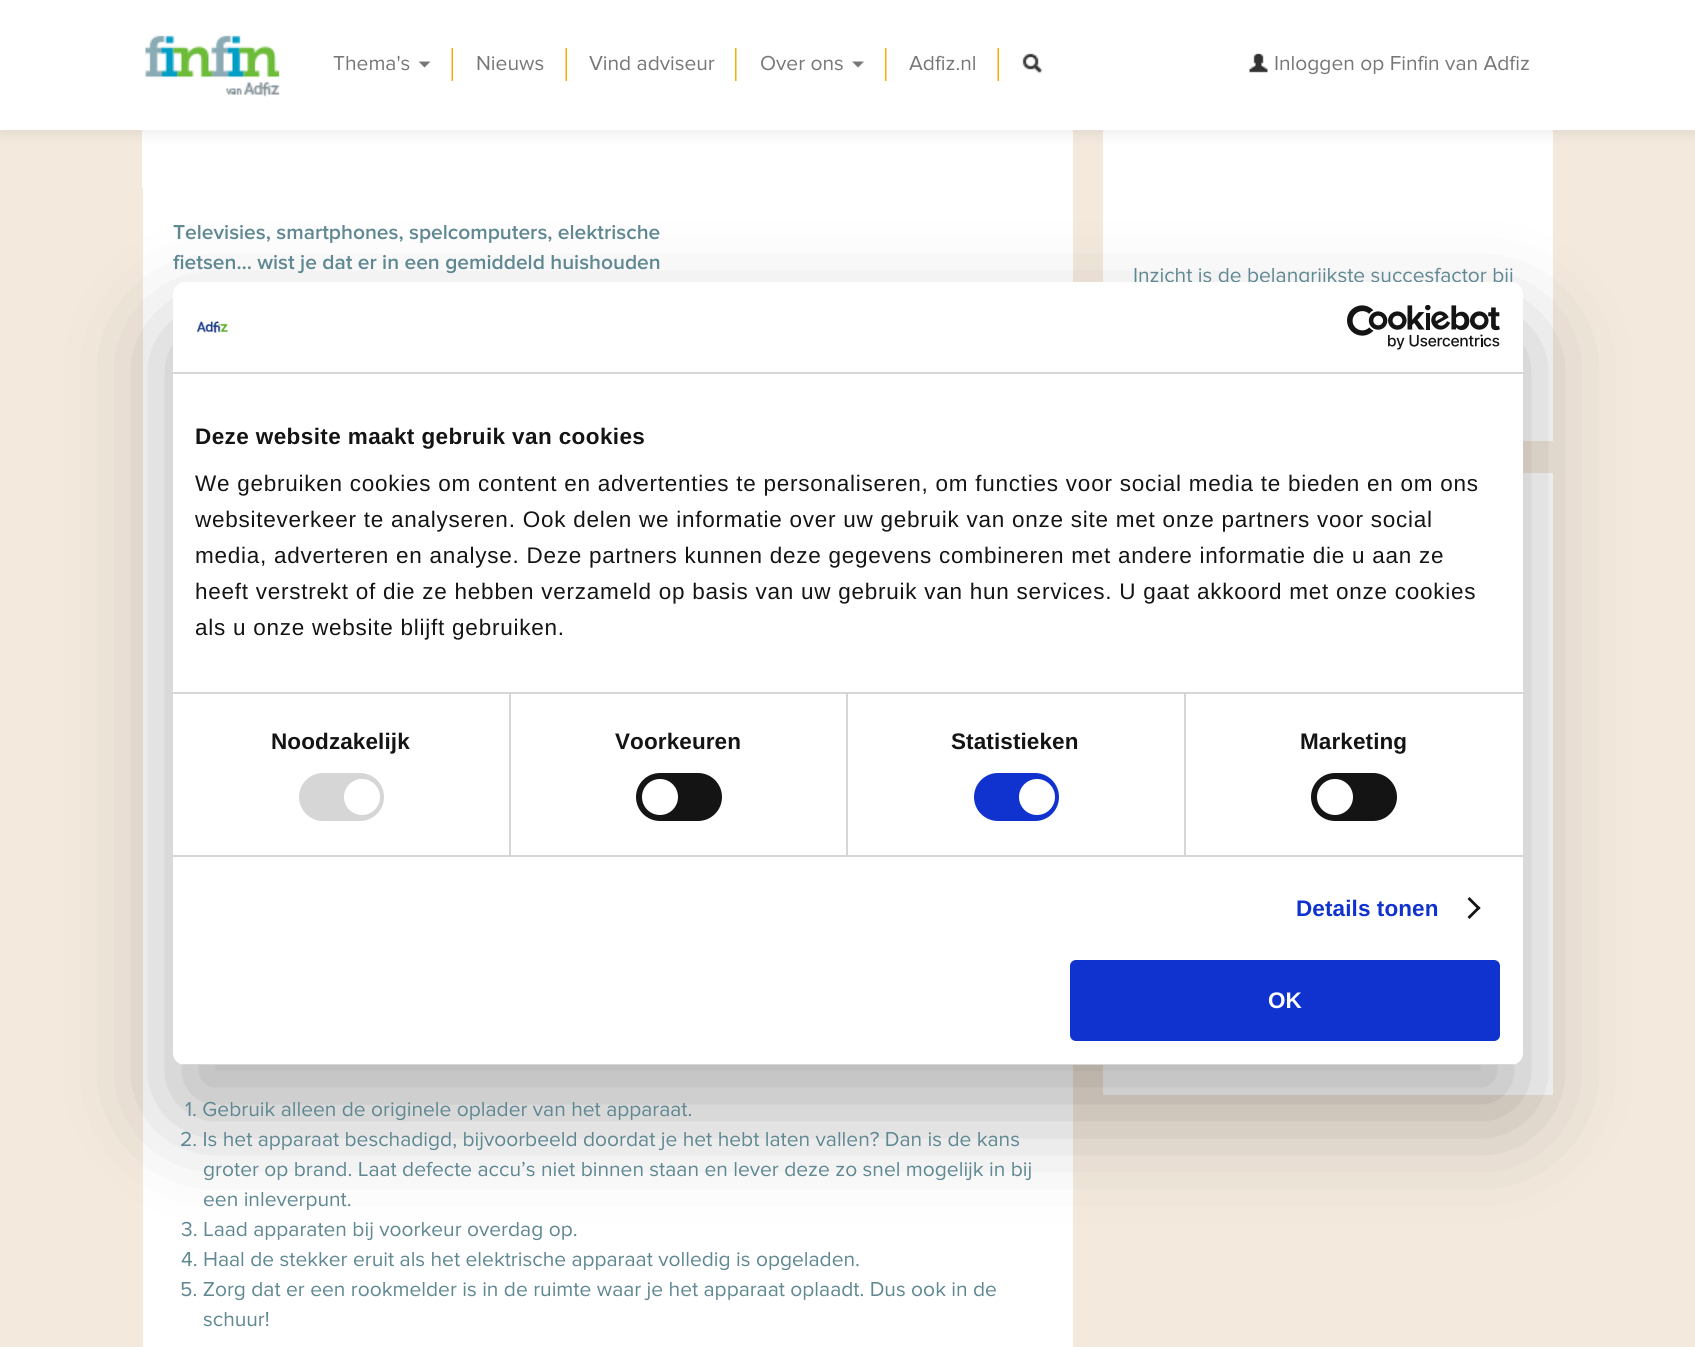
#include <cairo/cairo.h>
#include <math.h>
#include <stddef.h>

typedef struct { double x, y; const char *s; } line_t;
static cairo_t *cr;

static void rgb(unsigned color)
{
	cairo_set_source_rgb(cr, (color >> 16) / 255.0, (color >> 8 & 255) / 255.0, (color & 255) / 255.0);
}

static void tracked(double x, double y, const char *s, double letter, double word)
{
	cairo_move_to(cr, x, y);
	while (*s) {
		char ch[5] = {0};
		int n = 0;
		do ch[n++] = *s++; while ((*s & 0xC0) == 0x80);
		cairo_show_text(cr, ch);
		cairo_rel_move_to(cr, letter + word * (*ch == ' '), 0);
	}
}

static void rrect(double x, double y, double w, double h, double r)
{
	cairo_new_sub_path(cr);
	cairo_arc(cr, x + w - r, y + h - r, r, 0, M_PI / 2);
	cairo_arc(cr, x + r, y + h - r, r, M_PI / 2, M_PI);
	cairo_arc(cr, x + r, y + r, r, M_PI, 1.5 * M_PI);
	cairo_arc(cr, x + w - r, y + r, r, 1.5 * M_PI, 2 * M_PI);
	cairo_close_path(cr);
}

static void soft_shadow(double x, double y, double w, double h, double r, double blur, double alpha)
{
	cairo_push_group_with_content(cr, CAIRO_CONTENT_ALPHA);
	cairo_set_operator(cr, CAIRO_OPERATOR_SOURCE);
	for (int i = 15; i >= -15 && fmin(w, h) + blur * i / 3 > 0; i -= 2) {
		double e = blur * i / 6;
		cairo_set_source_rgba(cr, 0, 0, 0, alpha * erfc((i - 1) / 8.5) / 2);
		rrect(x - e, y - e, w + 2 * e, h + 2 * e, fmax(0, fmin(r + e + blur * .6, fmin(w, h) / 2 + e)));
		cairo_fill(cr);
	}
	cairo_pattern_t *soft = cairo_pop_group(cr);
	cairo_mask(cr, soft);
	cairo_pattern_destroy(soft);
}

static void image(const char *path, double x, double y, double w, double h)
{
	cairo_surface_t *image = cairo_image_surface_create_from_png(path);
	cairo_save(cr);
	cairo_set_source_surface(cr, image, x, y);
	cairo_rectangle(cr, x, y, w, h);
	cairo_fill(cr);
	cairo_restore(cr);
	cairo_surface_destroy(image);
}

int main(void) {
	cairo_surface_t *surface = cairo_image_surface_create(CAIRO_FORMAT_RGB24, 1695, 1347);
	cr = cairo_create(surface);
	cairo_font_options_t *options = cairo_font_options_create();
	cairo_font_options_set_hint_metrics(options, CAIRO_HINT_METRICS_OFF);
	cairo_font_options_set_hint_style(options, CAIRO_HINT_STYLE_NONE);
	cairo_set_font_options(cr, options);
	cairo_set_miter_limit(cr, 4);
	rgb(0xf3e9dd);
	cairo_paint(cr);
	rgb(0xffffff);
	cairo_rectangle(cr, 142, 130, 931, 58);
	cairo_fill(cr);
	cairo_rectangle(cr, 1103, 130, 450, 311);
	cairo_fill(cr);
	rgb(0x000000);
	soft_shadow(0, 2, 1695, 129, 0, 7.5, 0.1);
	rgb(0xffffff);
	cairo_rectangle(cr, 0, 0, 1695, 130);
	cairo_fill(cr);
	image("img/1.png", 145, 35, 135, 62);
	image("img/2.png", 451, 48, 2, 33);
	rgb(0x777777);
	cairo_new_path(cr);
	cairo_move_to(cr, 418.5, 61.5);
	cairo_line_to(cr, 430.5, 61.5);
	cairo_line_to(cr, 424.5, 67.5);
	cairo_close_path(cr);
	cairo_fill(cr);
	image("img/2.png", 565, 48, 2, 33);
	image("img/3.png", 735, 48, 2, 33);
	image("img/3.png", 885, 48, 2, 33);
	cairo_new_path(cr);
	cairo_move_to(cr, 852, 61.5);
	cairo_line_to(cr, 864, 61.5);
	cairo_line_to(cr, 858, 67.5);
	cairo_close_path(cr);
	cairo_fill(cr);
	image("img/2.png", 997, 48, 2, 33);
	image("img/4.png", 1022, 53, 21, 21);
	image("img/5.png", 1249, 53, 19, 20);
	rgb(0xffffff);
	cairo_rectangle(cr, 143, 188, 930, 1159);
	cairo_fill(cr);
	cairo_rectangle(cr, 1103, 473, 450, 622);
	cairo_fill(cr);
	rgb(0x000000);
	soft_shadow(173, 330, 1350, 783, 12, 51, 0.3);
	cairo_select_font_face(cr, "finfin", CAIRO_FONT_SLANT_NORMAL, CAIRO_FONT_WEIGHT_NORMAL);
	cairo_set_font_size(cr, 21);
	rgb(0x777777);
	{
		static const line_t items[] = {
			{333, 70, "Thema's"},
			{476, 70, "Nieuws"},
			{589, 70, "Vind adviseur"},
			{760, 70, "Over ons"},
			{909, 70, "Adfiz.nl"},
			{1274, 70, "Inloggen op Finfin van Adfiz"},
		};
		for (size_t i = 0; i < sizeof items / sizeof *items; i++) {
			cairo_move_to(cr, items[i].x, items[i].y);
			cairo_show_text(cr, items[i].s);
		}
	}
	cairo_select_font_face(cr, "finfin SemiBold", CAIRO_FONT_SLANT_NORMAL, CAIRO_FONT_WEIGHT_NORMAL);
	rgb(0x5f8893);
	cairo_move_to(cr, 173, 239);
	cairo_show_text(cr, "Televisies, smartphones, spelcomputers, elektrische");
	cairo_move_to(cr, 173, 269);
	cairo_show_text(cr, "fietsen… wist je dat er in een gemiddeld huishouden");
	cairo_select_font_face(cr, "finfin", CAIRO_FONT_SLANT_NORMAL, CAIRO_FONT_WEIGHT_NORMAL);
	{
		static const line_t items[] = {
			{185, 1116, "1. Gebruik alleen de originele oplader van het apparaat."},
			{180, 1146, "2. Is het apparaat beschadigd, bijvoorbeeld doordat je het hebt laten vallen? Dan is de kans"},
			{203, 1176, "groter op brand. Laat defecte accu’s niet binnen staan en lever deze zo snel mogelijk in bij"},
			{203, 1206, "een inleverpunt."},
			{181, 1236, "3. Laad apparaten bij voorkeur overdag op."},
			{181, 1266, "4. Haal de stekker eruit als het elektrische apparaat volledig is opgeladen."},
			{180, 1296, "5. Zorg dat er een rookmelder is in de ruimte waar je het apparaat oplaadt. Dus ook in de"},
			{203, 1326, "schuur!"},
			{1133, 282, "Inzicht is de belangrijkste succesfactor bij"},
		};
		for (size_t i = 0; i < sizeof items / sizeof *items; i++) {
			cairo_move_to(cr, items[i].x, items[i].y);
			cairo_show_text(cr, items[i].s);
		}
	}
	rgb(0xffffff);
	rrect(173, 282, 1350, 783, 12);
	cairo_fill(cr);
	rgb(0xd6d6d6);
	cairo_rectangle(cr, 173, 372, 1350, 2);
	cairo_fill(cr);
	image("img/6.png", 196, 321, 32, 13);
	image("img/7.png", 1347, 305, 153, 45);
	cairo_select_font_face(cr, "Liberation Sans", CAIRO_FONT_SLANT_NORMAL, CAIRO_FONT_WEIGHT_BOLD);
	cairo_set_font_size(cr, 22.5);
	rgb(0x141414);
	tracked(195, 444, "Deze website maakt gebruik van cookies", 0.4, 0);
	cairo_select_font_face(cr, "Liberation Sans", CAIRO_FONT_SLANT_NORMAL, CAIRO_FONT_WEIGHT_NORMAL);
	{
		static const line_t items[] = {
			{195, 491, "We gebruiken cookies om content en advertenties te personaliseren, om functies voor social media te bieden en om ons"},
			{195, 527, "websiteverkeer te analyseren. Ook delen we informatie over uw gebruik van onze site met onze partners voor social"},
			{195, 563, "media, adverteren en analyse. Deze partners kunnen deze gegevens combineren met andere informatie die u aan ze"},
			{195, 599, "heeft verstrekt of die ze hebben verzameld op basis van uw gebruik van hun services. U gaat akkoord met onze cookies"},
			{195, 635, "als u onze website blijft gebruiken."},
		};
		for (size_t i = 0; i < sizeof items / sizeof *items; i++) {
			tracked(items[i].x, items[i].y, items[i].s, 0.75, 0);
		}
	}
	rgb(0xd6d6d6);
	cairo_rectangle(cr, 173, 855, 1350, 2);
	cairo_fill(cr);
	cairo_rectangle(cr, 509, 693, 2, 162);
	cairo_fill(cr);
	cairo_select_font_face(cr, "Liberation Sans", CAIRO_FONT_SLANT_NORMAL, CAIRO_FONT_WEIGHT_BOLD);
	rgb(0x141414);
	tracked(271, 749, "Noodzakelijk", 0.1, 0);
	rgb(0xd6d6d6);
	rrect(299, 773, 85, 48, 24);
	cairo_fill(cr);
	rgb(0xffffff);
	cairo_arc(cr, 362, 797, 18, 0, 2 * M_PI);
	cairo_fill(cr);
	rgb(0xd6d6d6);
	cairo_rectangle(cr, 846, 693, 2, 162);
	cairo_fill(cr);
	rgb(0x141414);
	tracked(615, 749, "Voorkeuren", 0.1, 0);
	rrect(636, 773, 86, 48, 24);
	cairo_fill(cr);
	rgb(0xffffff);
	cairo_arc(cr, 660, 797, 18, 0, 2 * M_PI);
	cairo_fill(cr);
	rgb(0xd6d6d6);
	cairo_rectangle(cr, 1184, 693, 2, 162);
	cairo_fill(cr);
	cairo_rectangle(cr, 173, 692, 1350, 2);
	cairo_fill(cr);
	rgb(0x141414);
	tracked(951, 749, "Statistieken", 0.1, 0);
	rgb(0x1032cf);
	rrect(974, 773, 85, 48, 24);
	cairo_fill(cr);
	rgb(0xffffff);
	cairo_arc(cr, 1037, 797, 18, 0, 2 * M_PI);
	cairo_fill(cr);
	rgb(0x141414);
	tracked(1300, 749, "Marketing", 0.1, 0);
	rrect(1311, 773, 86, 48, 24);
	cairo_fill(cr);
	rgb(0xffffff);
	cairo_arc(cr, 1335, 797, 18, 0, 2 * M_PI);
	cairo_fill(cr);
	rgb(0x1032cf);
	tracked(1296, 916, "Details tonen", 0.1, 0);
	rgb(0x141414);
	cairo_new_path(cr);
	cairo_move_to(cr, 1469.5, 897);
	cairo_line_to(cr, 1480.5, 908);
	cairo_line_to(cr, 1478.5, 910);
	cairo_line_to(cr, 1467.5, 899);
	cairo_close_path(cr);
	cairo_fill(cr);
	cairo_new_path(cr);
	cairo_move_to(cr, 1478.5, 906);
	cairo_line_to(cr, 1480.5, 908);
	cairo_line_to(cr, 1469.5, 919);
	cairo_line_to(cr, 1467.5, 917);
	cairo_close_path(cr);
	cairo_fill(cr);
	cairo_save(cr);
	rrect(173, 282, 1350, 783, 12);
	cairo_clip(cr);
	rgb(0xd6d6d6);
	cairo_rectangle(cr, 173, 1064, 1350, 1);
	cairo_fill(cr);
	cairo_restore(cr);
	rgb(0x1032cf);
	rrect(1071.5, 961.5, 427, 78, 4.5);
	cairo_fill_preserve(cr);
	cairo_set_line_width(cr, 3);
	cairo_stroke(cr);
	rgb(0xffffff);
	cairo_move_to(cr, 1268, 1008);
	cairo_show_text(cr, "OK");
	cairo_surface_write_to_png(surface, "page.png");
	cairo_font_options_destroy(options);
	cairo_destroy(cr);
	cairo_surface_destroy(surface);
	return 0;
}
